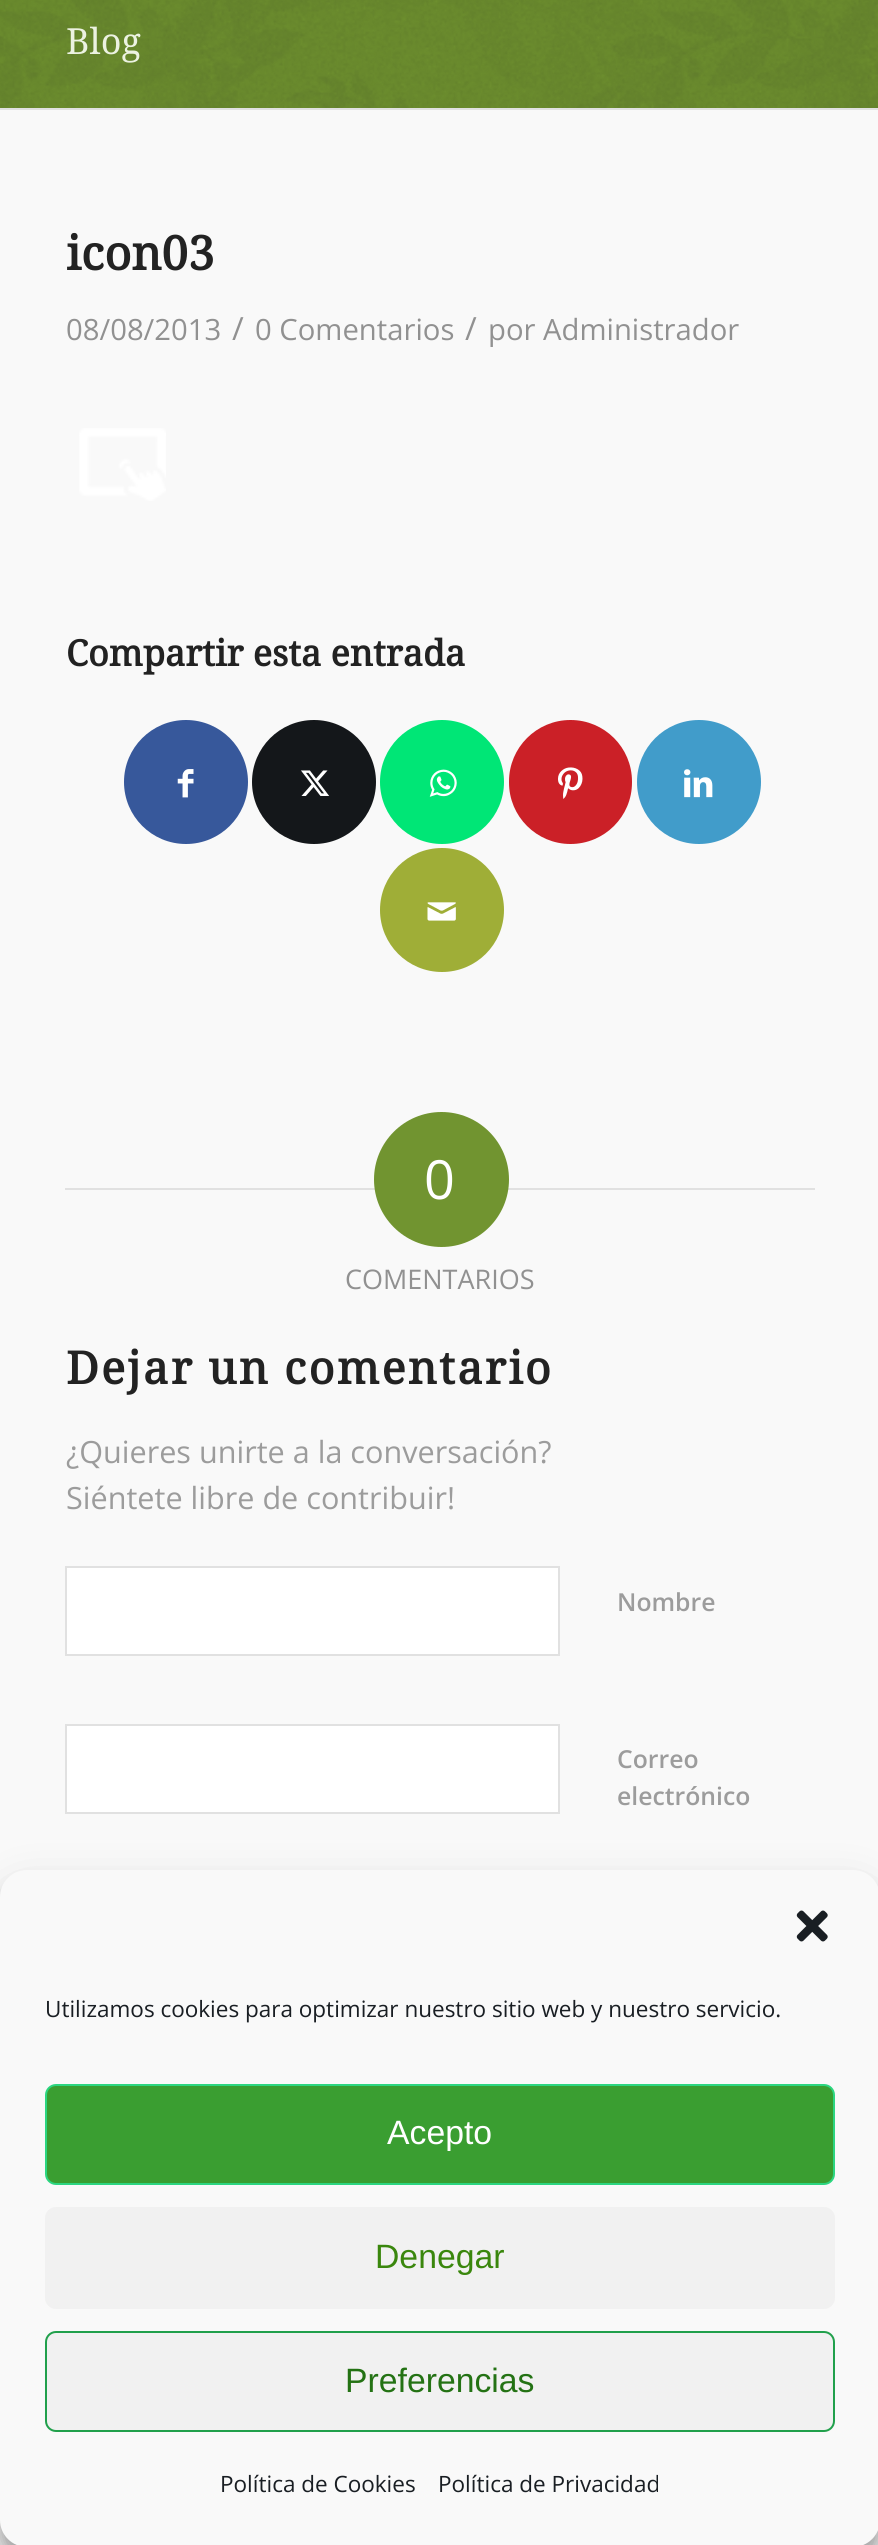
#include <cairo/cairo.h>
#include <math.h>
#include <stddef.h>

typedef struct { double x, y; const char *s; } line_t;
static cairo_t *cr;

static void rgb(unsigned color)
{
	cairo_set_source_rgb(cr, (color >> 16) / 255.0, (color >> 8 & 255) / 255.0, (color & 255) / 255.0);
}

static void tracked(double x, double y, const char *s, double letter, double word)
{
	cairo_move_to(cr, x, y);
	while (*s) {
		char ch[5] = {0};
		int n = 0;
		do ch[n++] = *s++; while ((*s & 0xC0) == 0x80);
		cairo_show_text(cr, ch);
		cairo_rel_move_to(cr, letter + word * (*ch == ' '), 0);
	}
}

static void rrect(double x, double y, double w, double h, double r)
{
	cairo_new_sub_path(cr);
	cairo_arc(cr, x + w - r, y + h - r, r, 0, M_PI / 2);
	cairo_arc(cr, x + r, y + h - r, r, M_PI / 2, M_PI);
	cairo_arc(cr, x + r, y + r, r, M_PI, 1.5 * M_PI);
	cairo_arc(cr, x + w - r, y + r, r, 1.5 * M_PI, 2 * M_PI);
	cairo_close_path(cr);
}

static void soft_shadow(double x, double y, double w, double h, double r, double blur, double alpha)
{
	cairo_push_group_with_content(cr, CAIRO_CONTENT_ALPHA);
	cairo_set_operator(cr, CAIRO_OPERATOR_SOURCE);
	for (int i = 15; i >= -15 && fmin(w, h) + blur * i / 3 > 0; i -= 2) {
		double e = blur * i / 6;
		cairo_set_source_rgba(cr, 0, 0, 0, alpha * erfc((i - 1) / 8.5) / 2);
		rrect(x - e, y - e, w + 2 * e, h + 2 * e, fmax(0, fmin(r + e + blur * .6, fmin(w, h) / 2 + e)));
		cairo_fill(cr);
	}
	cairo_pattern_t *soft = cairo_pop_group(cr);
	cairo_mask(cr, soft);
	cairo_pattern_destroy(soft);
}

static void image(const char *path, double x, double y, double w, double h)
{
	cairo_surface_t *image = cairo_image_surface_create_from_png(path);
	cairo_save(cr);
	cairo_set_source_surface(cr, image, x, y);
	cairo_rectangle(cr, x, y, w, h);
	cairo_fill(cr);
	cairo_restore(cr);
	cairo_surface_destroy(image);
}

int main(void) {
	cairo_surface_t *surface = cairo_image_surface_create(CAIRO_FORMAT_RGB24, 878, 2545);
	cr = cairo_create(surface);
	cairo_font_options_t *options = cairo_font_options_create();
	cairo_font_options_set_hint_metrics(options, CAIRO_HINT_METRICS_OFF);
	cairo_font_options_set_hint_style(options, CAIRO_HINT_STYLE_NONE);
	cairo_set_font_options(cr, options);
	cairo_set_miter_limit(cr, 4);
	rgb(0x719430);
	cairo_paint(cr);
	image("img/1.png", 0, 0, 878, 108);
	rgb(0xf9f9f9);
	cairo_rectangle(cr, 0, 110, 878, 2435);
	cairo_fill(cr);
	rgb(0xe1e1e1);
	cairo_rectangle(cr, 0, 108, 878, 2);
	cairo_fill(cr);
	image("img/2.png", 79, 428, 87, 73);
	rgb(0x37589b);
	cairo_arc(cr, 186, 782, 62, 0, 2 * M_PI);
	cairo_fill(cr);
	image("img/3.png", 177, 769, 17, 29);
	rgb(0x14171a);
	cairo_arc(cr, 314, 782, 62, 0, 2 * M_PI);
	cairo_fill(cr);
	image("img/4.png", 301, 770, 29, 26);
	rgb(0x00e676);
	cairo_arc(cr, 442, 782, 62, 0, 2 * M_PI);
	cairo_fill(cr);
	image("img/5.png", 429, 769, 28, 28);
	rgb(0xcb2027);
	rrect(509, 720, 123, 124, 61.5);
	cairo_fill(cr);
	image("img/6.png", 558, 767, 25, 32);
	rgb(0x419cca);
	cairo_arc(cr, 699, 782, 62, 0, 2 * M_PI);
	cairo_fill(cr);
	image("img/7.png", 684, 769, 29, 29);
	rgb(0x9fae37);
	cairo_arc(cr, 442, 910, 62, 0, 2 * M_PI);
	cairo_fill(cr);
	image("img/8.png", 427, 902, 29, 19);
	rgb(0xe1e1e1);
	cairo_rectangle(cr, 65, 1188, 315, 2);
	cairo_fill(cr);
	cairo_rectangle(cr, 500, 1188, 315, 2);
	cairo_fill(cr);
	rgb(0x719430);
	cairo_arc(cr, 441.5, 1179.5, 67.5, 0, 2 * M_PI);
	cairo_fill(cr);
	rgb(0xffffff);
	cairo_rectangle(cr, 66, 1567, 493, 88);
	cairo_fill_preserve(cr);
	rgb(0xe1e1e1);
	cairo_stroke(cr);
	rgb(0xffffff);
	cairo_rectangle(cr, 66, 1725, 493, 88);
	cairo_fill_preserve(cr);
	rgb(0xe1e1e1);
	cairo_stroke(cr);
	rgb(0x000000);
	soft_shadow(0, 1883, 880, 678, 27, 7, 0.23);
	soft_shadow(0, 1892, 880, 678, 27, 22.5, 0.19);
	rgb(0xf9f9f9);
	rrect(0, 1870, 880, 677, 27);
	cairo_fill(cr);
	image("img/9.png", 796, 1910, 32, 32);
	rgb(0x3a9e31);
	rrect(46, 2085, 788, 99, 10);
	cairo_fill_preserve(cr);
	rgb(0x2cd681);
	cairo_stroke(cr);
	rgb(0xf1f1f1);
	rrect(45, 2207, 790, 102, 11);
	cairo_fill(cr);
	rrect(46, 2332, 788, 99, 10);
	cairo_fill_preserve(cr);
	rgb(0x21a04c);
	cairo_stroke(cr);
	cairo_select_font_face(cr, "Droid Serif", CAIRO_FONT_SLANT_NORMAL, CAIRO_FONT_WEIGHT_NORMAL);
	cairo_set_font_size(cr, 36);
	rgb(0xecf2e1);
	cairo_move_to(cr, 66, 54);
	cairo_show_text(cr, "Blog");
	cairo_select_font_face(cr, "Droid Serif", CAIRO_FONT_SLANT_NORMAL, CAIRO_FONT_WEIGHT_BOLD);
	cairo_set_font_size(cr, 47);
	rgb(0x222222);
	cairo_move_to(cr, 66, 270);
	cairo_show_text(cr, "icon03");
	cairo_select_font_face(cr, "Open Sans", CAIRO_FONT_SLANT_NORMAL, CAIRO_FONT_WEIGHT_NORMAL);
	cairo_set_font_size(cr, 29.25);
	rgb(0x919191);
	cairo_move_to(cr, 66, 340);
	cairo_show_text(cr, "08/08/2013");
	cairo_set_font_size(cr, 32);
	cairo_move_to(cr, 232, 340);
	cairo_show_text(cr, "/");
	cairo_set_font_size(cr, 29.25);
	cairo_move_to(cr, 255, 340);
	cairo_show_text(cr, "0 Comentarios");
	cairo_set_font_size(cr, 32);
	cairo_move_to(cr, 465, 340);
	cairo_show_text(cr, "/");
	cairo_set_font_size(cr, 29.25);
	cairo_move_to(cr, 488, 340);
	cairo_show_text(cr, "por Administrador");
	cairo_select_font_face(cr, "Droid Serif", CAIRO_FONT_SLANT_NORMAL, CAIRO_FONT_WEIGHT_BOLD);
	cairo_set_font_size(cr, 36);
	rgb(0x222222);
	cairo_move_to(cr, 66, 666);
	cairo_show_text(cr, "Compartir esta entrada");
	cairo_select_font_face(cr, "Open Sans", CAIRO_FONT_SLANT_NORMAL, CAIRO_FONT_WEIGHT_NORMAL);
	cairo_set_font_size(cr, 54);
	rgb(0xffffff);
	cairo_move_to(cr, 424, 1199);
	cairo_show_text(cr, "0");
	cairo_set_font_size(cr, 27);
	rgb(0x919191);
	cairo_move_to(cr, 345, 1289);
	cairo_show_text(cr, "COMENTARIOS");
	cairo_select_font_face(cr, "Droid Serif", CAIRO_FONT_SLANT_NORMAL, CAIRO_FONT_WEIGHT_BOLD);
	cairo_set_font_size(cr, 45);
	rgb(0x222222);
	tracked(66, 1384, "Dejar un comentario", 2.25, 0);
	cairo_select_font_face(cr, "Open Sans", CAIRO_FONT_SLANT_NORMAL, CAIRO_FONT_WEIGHT_NORMAL);
	cairo_set_font_size(cr, 30.6);
	rgb(0x9c9c9c);
	cairo_move_to(cr, 66, 1463);
	cairo_show_text(cr, "¿Quieres unirte a la conversación?");
	cairo_move_to(cr, 66, 1509);
	cairo_show_text(cr, "Siéntete libre de contribuir!");
	cairo_select_font_face(cr, "Open Sans SemiBold", CAIRO_FONT_SLANT_NORMAL, CAIRO_FONT_WEIGHT_NORMAL);
	cairo_set_font_size(cr, 24.75);
	{
		static const line_t items[] = {
			{617, 1611, "Nombre"},
			{617, 1768, "Correo"},
			{617, 1805, "electrónico"},
		};
		for (size_t i = 0; i < sizeof items / sizeof *items; i++) {
			cairo_move_to(cr, items[i].x, items[i].y);
			cairo_show_text(cr, items[i].s);
		}
	}
	cairo_select_font_face(cr, "Open Sans", CAIRO_FONT_SLANT_NORMAL, CAIRO_FONT_WEIGHT_NORMAL);
	cairo_set_font_size(cr, 22.5);
	rgb(0x191e23);
	cairo_move_to(cr, 45, 2017);
	cairo_show_text(cr, "Utilizamos cookies para optimizar nuestro sitio web y nuestro servicio.");
	cairo_select_font_face(cr, "Liberation Sans", CAIRO_FONT_SLANT_NORMAL, CAIRO_FONT_WEIGHT_NORMAL);
	cairo_set_font_size(cr, 33.75);
	rgb(0xffffff);
	cairo_move_to(cr, 387, 2144);
	cairo_show_text(cr, "Acepto");
	rgb(0x3a870d);
	cairo_move_to(cr, 375, 2268);
	cairo_show_text(cr, "Denegar");
	rgb(0x247214);
	cairo_move_to(cr, 345, 2392);
	cairo_show_text(cr, "Preferencias");
	cairo_select_font_face(cr, "Open Sans", CAIRO_FONT_SLANT_NORMAL, CAIRO_FONT_WEIGHT_NORMAL);
	cairo_set_font_size(cr, 22.5);
	rgb(0x191e23);
	cairo_move_to(cr, 220, 2492);
	cairo_show_text(cr, "Política de Cookies");
	cairo_move_to(cr, 438, 2492);
	cairo_show_text(cr, "Política de Privacidad");
	cairo_surface_write_to_png(surface, "page.png");
	cairo_font_options_destroy(options);
	cairo_destroy(cr);
	cairo_surface_destroy(surface);
	return 0;
}
